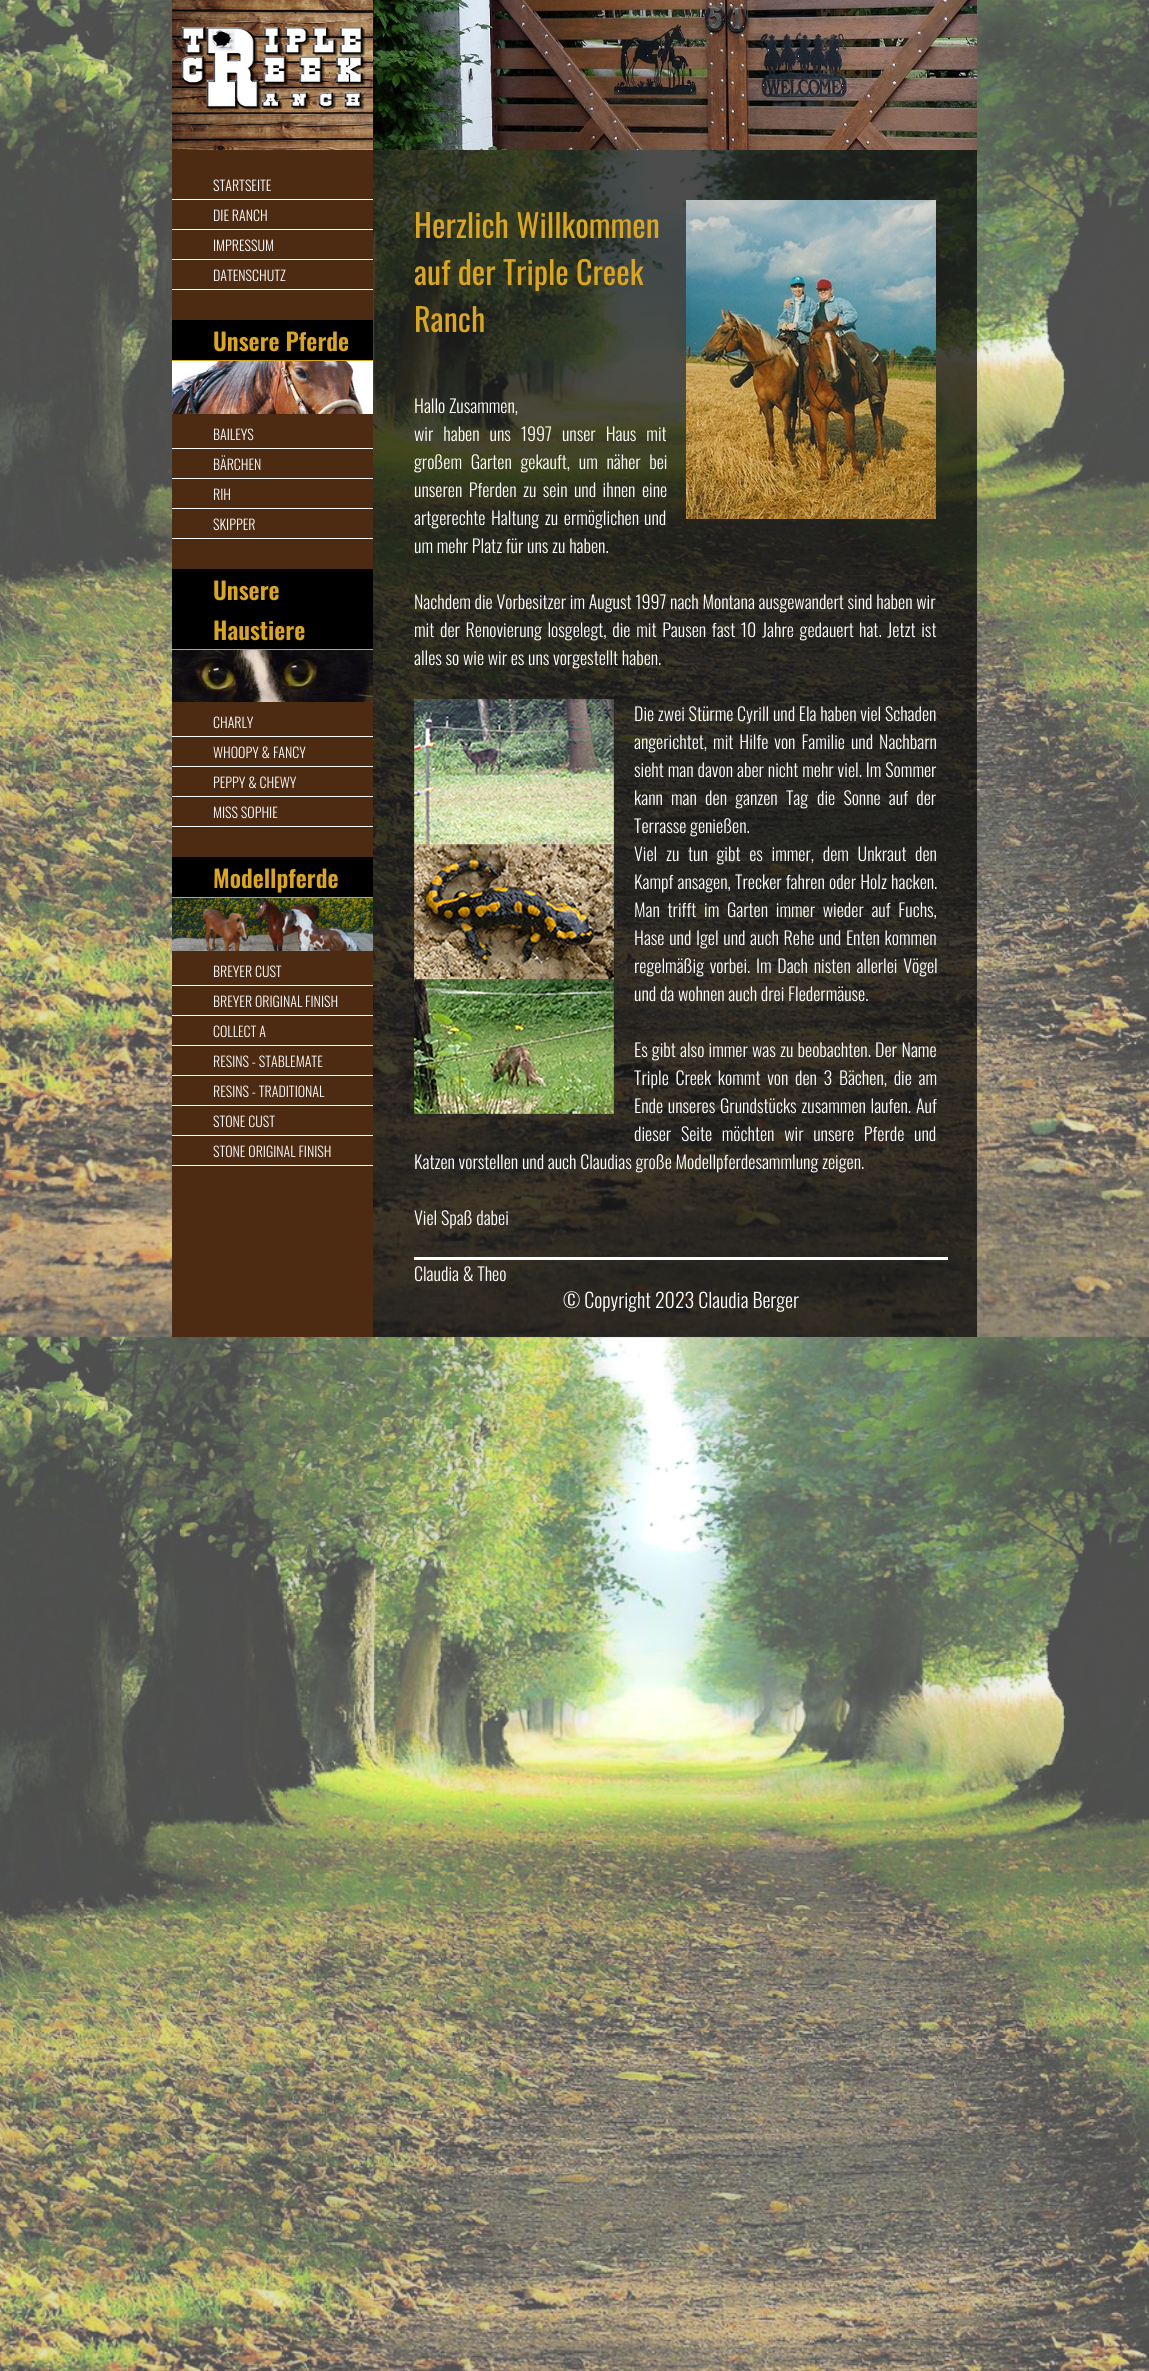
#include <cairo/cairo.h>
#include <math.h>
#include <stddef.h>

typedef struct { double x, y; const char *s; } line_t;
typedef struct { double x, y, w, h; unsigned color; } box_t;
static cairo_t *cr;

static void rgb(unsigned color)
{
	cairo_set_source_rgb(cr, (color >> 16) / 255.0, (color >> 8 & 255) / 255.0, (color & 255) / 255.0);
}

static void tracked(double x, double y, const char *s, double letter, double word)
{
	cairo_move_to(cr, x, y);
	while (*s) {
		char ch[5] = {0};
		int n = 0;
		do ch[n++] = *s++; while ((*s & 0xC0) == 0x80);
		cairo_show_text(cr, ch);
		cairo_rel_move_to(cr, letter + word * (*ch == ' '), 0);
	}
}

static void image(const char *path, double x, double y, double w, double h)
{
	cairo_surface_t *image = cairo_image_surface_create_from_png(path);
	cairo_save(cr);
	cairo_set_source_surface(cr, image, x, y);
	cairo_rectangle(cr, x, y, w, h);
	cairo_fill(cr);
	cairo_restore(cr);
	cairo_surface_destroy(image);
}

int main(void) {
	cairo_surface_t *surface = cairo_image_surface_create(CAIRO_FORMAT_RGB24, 1149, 2371);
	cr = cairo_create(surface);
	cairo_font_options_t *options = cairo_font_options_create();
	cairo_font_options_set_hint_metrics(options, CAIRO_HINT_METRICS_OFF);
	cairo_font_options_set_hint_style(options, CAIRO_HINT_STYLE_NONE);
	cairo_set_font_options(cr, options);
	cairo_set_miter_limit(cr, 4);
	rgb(0xffffff);
	cairo_paint(cr);
	image("img/1.png", 0, 0, 1149, 2371);
	cairo_set_source_rgba(cr, 0, 0, 0, 0.7);
	cairo_rectangle(cr, 373, 150, 604, 1187);
	cairo_fill(cr);
	image("img/2.png", 172, 0, 201, 150);
	image("img/3.png", 373, 0, 604, 150);
	{
		static const box_t items[] = {
			{172, 150, 201, 1187, 0x4d2b12},
			{172, 199, 201, 1, 0xffffff},
			{172, 229, 201, 1, 0xffffff},
			{172, 259, 201, 1, 0xffffff},
			{172, 289, 201, 1, 0xffffff},
			{172, 320, 201, 40, 0x000000},
			{172, 360, 201, 1, 0xdaa520},
		};
		for (size_t i = 0; i < sizeof items / sizeof *items; i++) {
			rgb(items[i].color);
			cairo_rectangle(cr, items[i].x, items[i].y, items[i].w, items[i].h);
			cairo_fill(cr);
		}
	}
	image("img/4.png", 172, 361, 201, 53);
	{
		static const box_t items[] = {
			{172, 448, 201, 1, 0xffffff},
			{172, 478, 201, 1, 0xffffff},
			{172, 508, 201, 1, 0xffffff},
			{172, 538, 201, 1, 0xffffff},
			{172, 569, 201, 80, 0x000000},
			{172, 649, 201, 1, 0xdaa520},
		};
		for (size_t i = 0; i < sizeof items / sizeof *items; i++) {
			rgb(items[i].color);
			cairo_rectangle(cr, items[i].x, items[i].y, items[i].w, items[i].h);
			cairo_fill(cr);
		}
	}
	image("img/5.png", 172, 650, 201, 52);
	{
		static const box_t items[] = {
			{172, 736, 201, 1, 0xffffff},
			{172, 766, 201, 1, 0xffffff},
			{172, 796, 201, 1, 0xffffff},
			{172, 826, 201, 1, 0xffffff},
			{172, 857, 201, 40, 0x000000},
			{172, 897, 201, 1, 0xdaa520},
		};
		for (size_t i = 0; i < sizeof items / sizeof *items; i++) {
			rgb(items[i].color);
			cairo_rectangle(cr, items[i].x, items[i].y, items[i].w, items[i].h);
			cairo_fill(cr);
		}
	}
	image("img/6.png", 172, 898, 201, 53);
	{
		static const box_t items[] = {
			{172, 985, 201, 1, 0xffffff},
			{172, 1015, 201, 1, 0xffffff},
			{172, 1045, 201, 1, 0xffffff},
			{172, 1075, 201, 1, 0xffffff},
			{172, 1105, 201, 1, 0xffffff},
			{172, 1135, 201, 1, 0xffffff},
			{172, 1165, 201, 1, 0xffffff},
		};
		for (size_t i = 0; i < sizeof items / sizeof *items; i++) {
			rgb(items[i].color);
			cairo_rectangle(cr, items[i].x, items[i].y, items[i].w, items[i].h);
			cairo_fill(cr);
		}
	}
	image("img/7.png", 686, 200, 250, 319);
	image("img/8.png", 414, 699, 200, 415);
	cairo_rectangle(cr, 414, 1257, 534, 3);
	cairo_fill(cr);
	cairo_select_font_face(cr, "Oswald Light", CAIRO_FONT_SLANT_NORMAL, CAIRO_FONT_WEIGHT_NORMAL);
	cairo_set_font_size(cr, 14);
	{
		static const line_t items[] = {
			{213, 191, "STARTSEITE"},
			{213, 221, "DIE RANCH"},
			{213, 251, "IMPRESSUM"},
			{213, 281, "DATENSCHUTZ"},
		};
		for (size_t i = 0; i < sizeof items / sizeof *items; i++) {
			cairo_move_to(cr, items[i].x, items[i].y);
			cairo_show_text(cr, items[i].s);
		}
	}
	cairo_select_font_face(cr, "Oswald SemiBold", CAIRO_FONT_SLANT_NORMAL, CAIRO_FONT_WEIGHT_NORMAL);
	cairo_set_font_size(cr, 24);
	rgb(0xdaa520);
	cairo_move_to(cr, 213, 351);
	cairo_show_text(cr, "Unsere Pferde");
	cairo_select_font_face(cr, "Oswald Light", CAIRO_FONT_SLANT_NORMAL, CAIRO_FONT_WEIGHT_NORMAL);
	cairo_set_font_size(cr, 14);
	rgb(0xffffff);
	{
		static const line_t items[] = {
			{213, 440, "BAILEYS"},
			{213, 470, "BÄRCHEN"},
			{213, 500, "RIH"},
			{213, 530, "SKIPPER"},
		};
		for (size_t i = 0; i < sizeof items / sizeof *items; i++) {
			cairo_move_to(cr, items[i].x, items[i].y);
			cairo_show_text(cr, items[i].s);
		}
	}
	cairo_select_font_face(cr, "Oswald SemiBold", CAIRO_FONT_SLANT_NORMAL, CAIRO_FONT_WEIGHT_NORMAL);
	cairo_set_font_size(cr, 24);
	rgb(0xdaa520);
	cairo_move_to(cr, 213, 600);
	cairo_show_text(cr, "Unsere");
	cairo_move_to(cr, 213, 640);
	cairo_show_text(cr, "Haustiere");
	cairo_select_font_face(cr, "Oswald Light", CAIRO_FONT_SLANT_NORMAL, CAIRO_FONT_WEIGHT_NORMAL);
	cairo_set_font_size(cr, 14);
	rgb(0xffffff);
	{
		static const line_t items[] = {
			{213, 728, "CHARLY"},
			{213, 758, "WHOOPY & FANCY"},
			{213, 788, "PEPPY & CHEWY"},
			{213, 818, "MISS SOPHIE"},
		};
		for (size_t i = 0; i < sizeof items / sizeof *items; i++) {
			cairo_move_to(cr, items[i].x, items[i].y);
			cairo_show_text(cr, items[i].s);
		}
	}
	cairo_select_font_face(cr, "Oswald SemiBold", CAIRO_FONT_SLANT_NORMAL, CAIRO_FONT_WEIGHT_NORMAL);
	cairo_set_font_size(cr, 24);
	rgb(0xdaa520);
	cairo_move_to(cr, 213, 888);
	cairo_show_text(cr, "Modellpferde");
	cairo_select_font_face(cr, "Oswald Light", CAIRO_FONT_SLANT_NORMAL, CAIRO_FONT_WEIGHT_NORMAL);
	cairo_set_font_size(cr, 14);
	rgb(0xffffff);
	{
		static const line_t items[] = {
			{213, 977, "BREYER CUST"},
			{213, 1007, "BREYER ORIGINAL FINISH"},
			{213, 1037, "COLLECT A"},
			{213, 1067, "RESINS - STABLEMATE"},
			{213, 1097, "RESINS - TRADITIONAL"},
			{213, 1127, "STONE CUST"},
			{213, 1157, "STONE ORIGINAL FINISH"},
		};
		for (size_t i = 0; i < sizeof items / sizeof *items; i++) {
			cairo_move_to(cr, items[i].x, items[i].y);
			cairo_show_text(cr, items[i].s);
		}
	}
	cairo_select_font_face(cr, "Oswald", CAIRO_FONT_SLANT_NORMAL, CAIRO_FONT_WEIGHT_NORMAL);
	cairo_set_font_size(cr, 32);
	rgb(0xdaa520);
	{
		static const line_t items[] = {
			{414, 238, "Herzlich Willkommen"},
			{414, 285, "auf der Triple Creek"},
			{414, 332, "Ranch"},
		};
		for (size_t i = 0; i < sizeof items / sizeof *items; i++) {
			cairo_move_to(cr, items[i].x, items[i].y);
			cairo_show_text(cr, items[i].s);
		}
	}
	cairo_select_font_face(cr, "Oswald Light", CAIRO_FONT_SLANT_NORMAL, CAIRO_FONT_WEIGHT_NORMAL);
	cairo_set_font_size(cr, 18);
	rgb(0xffffff);
	cairo_move_to(cr, 414, 413);
	cairo_show_text(cr, "Hallo Zusammen,");
	tracked(414, 441, "wir haben uns 1997 unser Haus mit", 0, 6.25);
	tracked(414, 469, "großem Garten gekauft, um näher bei", 0, 5);
	tracked(414, 497, "unseren Pferden zu sein und ihnen eine", 0, 2.75);
	tracked(414, 525, "artgerechte Haltung zu ermöglichen", 0, 2);
	{
		static const line_t items[] = {
			{644, 525, "und"},
			{414, 553, "um mehr Platz für uns zu haben."},
			{414, 609, "Nachdem die Vorbesitzer im August 1997 nach Montana ausgewandert sind haben wir"},
		};
		for (size_t i = 0; i < sizeof items / sizeof *items; i++) {
			cairo_move_to(cr, items[i].x, items[i].y);
			cairo_show_text(cr, items[i].s);
		}
	}
	tracked(414, 637, "mit der Renovierung losgelegt, die mit Pausen fast 10 Jahre gedauert", 0, 2);
	tracked(859, 637, "hat. Jetzt ist", 0, 2);
	cairo_move_to(cr, 414, 665);
	cairo_show_text(cr, "alles so wie wir es uns vorgestellt haben.");
	cairo_move_to(cr, 634, 721);
	cairo_show_text(cr, "Die zwei Stürme Cyrill und Ela haben viel Schaden");
	tracked(634, 749, "angerichtet, mit Hilfe von Familie und Nachbarn", 0, 2.25);
	tracked(634, 777, "sieht man davon aber nicht mehr viel. Im Sommer", 0, 0.25);
	tracked(634, 805, "kann man den ganzen Tag", 0, 4.5);
	tracked(817, 805, "die Sonne auf der", 0, 4.5);
	cairo_move_to(cr, 634, 833);
	cairo_show_text(cr, "Terrasse genießen.");
	tracked(634, 861, "Viel zu tun gibt es immer, dem Unkraut", 0, 5);
	cairo_move_to(cr, 915, 861);
	cairo_show_text(cr, "den");
	tracked(634, 889, "Kampf ansagen, Trecker fahren oder Holz hacken.", 0, 0.5);
	tracked(634, 917, "Man trifft im Garten immer wieder auf Fuchs,", 0, 4);
	tracked(634, 945, "Hase und Igel und auch Rehe", 0, 1);
	tracked(819, 945, "und Enten kommen", 0, 1);
	tracked(634, 973, "regelmäßig vorbei. Im Dach nisten allerlei Vögel", 0, 2);
	cairo_move_to(cr, 634, 1001);
	cairo_show_text(cr, "und da wohnen auch drei Fledermäuse.");
	tracked(634, 1057, "Es gibt also immer was zu beobachten.", 0, 0.5);
	tracked(875, 1057, "Der Name", 0, 1);
	tracked(634, 1085, "Triple Creek kommt von den 3 Bächen, die am", 0, 3);
	tracked(634, 1113, "Ende unseres", 0, 1);
	tracked(720, 1113, "Grundstücks zusammen laufen.", 0, 1);
	cairo_move_to(cr, 916, 1113);
	cairo_show_text(cr, "Auf");
	tracked(634, 1141, "dieser Seite möchten wir unsere Pferde und", 0, 6);
	{
		static const line_t items[] = {
			{414, 1169, "Katzen vorstellen und auch Claudias große Modellpferdesammlung zeigen."},
			{414, 1225, "Viel Spaß dabei"},
			{414, 1281, "Claudia & Theo"},
		};
		for (size_t i = 0; i < sizeof items / sizeof *items; i++) {
			cairo_move_to(cr, items[i].x, items[i].y);
			cairo_show_text(cr, items[i].s);
		}
	}
	cairo_set_font_size(cr, 20);
	cairo_move_to(cr, 563, 1308);
	cairo_show_text(cr, "© Copyright 2023 Claudia Berger");
	cairo_surface_write_to_png(surface, "page.png");
	cairo_font_options_destroy(options);
	cairo_destroy(cr);
	cairo_surface_destroy(surface);
	return 0;
}
